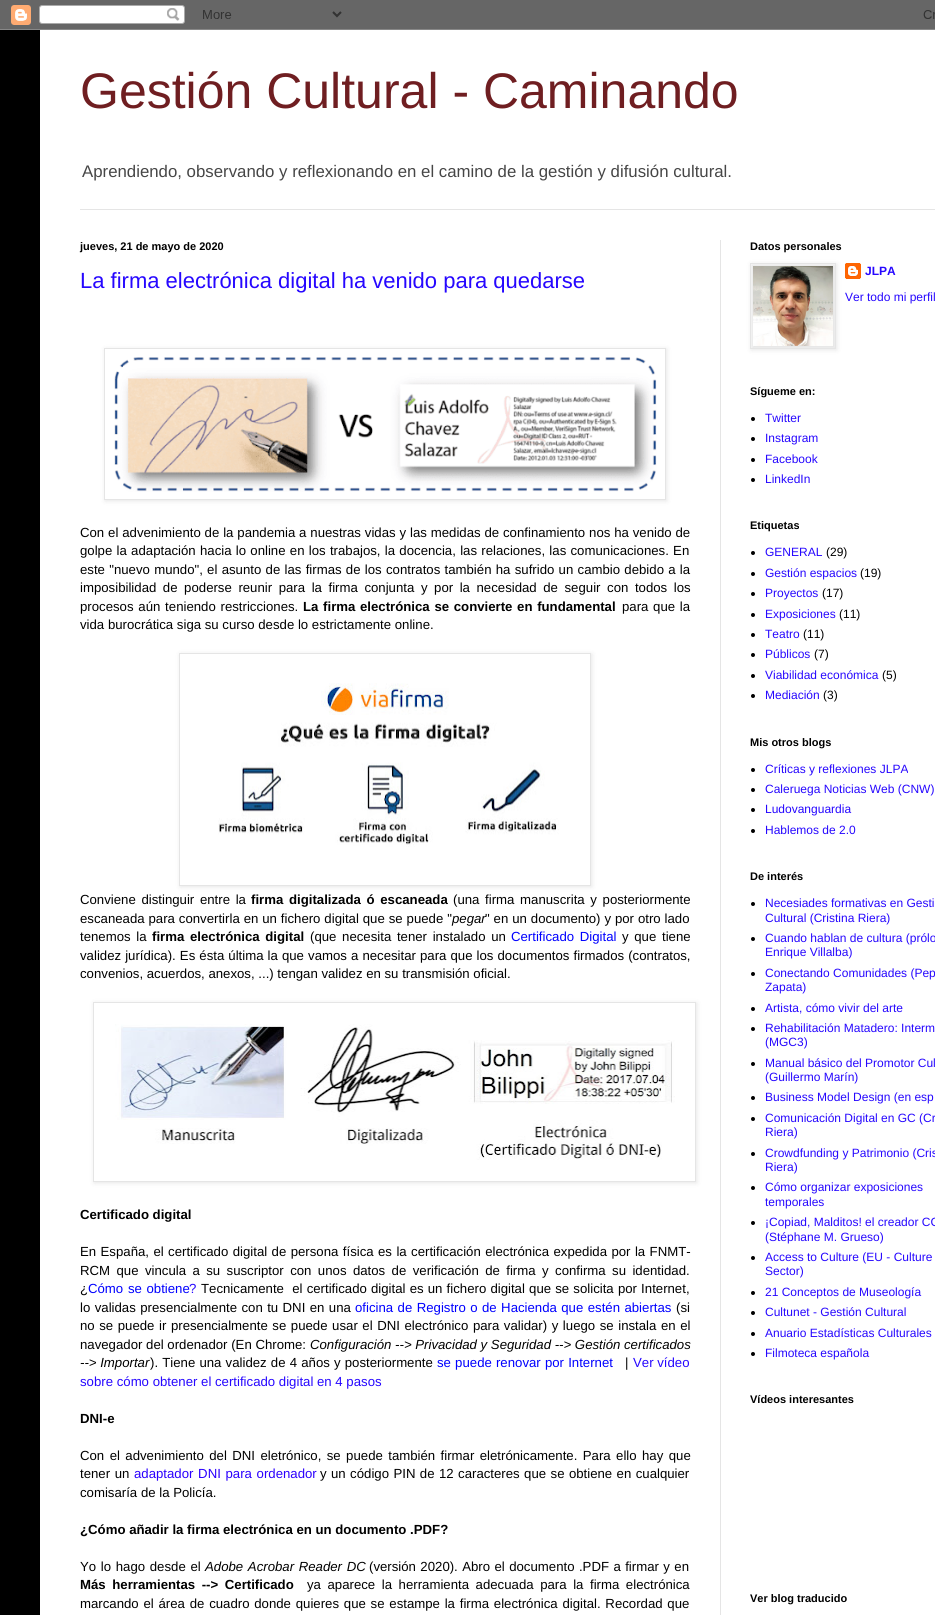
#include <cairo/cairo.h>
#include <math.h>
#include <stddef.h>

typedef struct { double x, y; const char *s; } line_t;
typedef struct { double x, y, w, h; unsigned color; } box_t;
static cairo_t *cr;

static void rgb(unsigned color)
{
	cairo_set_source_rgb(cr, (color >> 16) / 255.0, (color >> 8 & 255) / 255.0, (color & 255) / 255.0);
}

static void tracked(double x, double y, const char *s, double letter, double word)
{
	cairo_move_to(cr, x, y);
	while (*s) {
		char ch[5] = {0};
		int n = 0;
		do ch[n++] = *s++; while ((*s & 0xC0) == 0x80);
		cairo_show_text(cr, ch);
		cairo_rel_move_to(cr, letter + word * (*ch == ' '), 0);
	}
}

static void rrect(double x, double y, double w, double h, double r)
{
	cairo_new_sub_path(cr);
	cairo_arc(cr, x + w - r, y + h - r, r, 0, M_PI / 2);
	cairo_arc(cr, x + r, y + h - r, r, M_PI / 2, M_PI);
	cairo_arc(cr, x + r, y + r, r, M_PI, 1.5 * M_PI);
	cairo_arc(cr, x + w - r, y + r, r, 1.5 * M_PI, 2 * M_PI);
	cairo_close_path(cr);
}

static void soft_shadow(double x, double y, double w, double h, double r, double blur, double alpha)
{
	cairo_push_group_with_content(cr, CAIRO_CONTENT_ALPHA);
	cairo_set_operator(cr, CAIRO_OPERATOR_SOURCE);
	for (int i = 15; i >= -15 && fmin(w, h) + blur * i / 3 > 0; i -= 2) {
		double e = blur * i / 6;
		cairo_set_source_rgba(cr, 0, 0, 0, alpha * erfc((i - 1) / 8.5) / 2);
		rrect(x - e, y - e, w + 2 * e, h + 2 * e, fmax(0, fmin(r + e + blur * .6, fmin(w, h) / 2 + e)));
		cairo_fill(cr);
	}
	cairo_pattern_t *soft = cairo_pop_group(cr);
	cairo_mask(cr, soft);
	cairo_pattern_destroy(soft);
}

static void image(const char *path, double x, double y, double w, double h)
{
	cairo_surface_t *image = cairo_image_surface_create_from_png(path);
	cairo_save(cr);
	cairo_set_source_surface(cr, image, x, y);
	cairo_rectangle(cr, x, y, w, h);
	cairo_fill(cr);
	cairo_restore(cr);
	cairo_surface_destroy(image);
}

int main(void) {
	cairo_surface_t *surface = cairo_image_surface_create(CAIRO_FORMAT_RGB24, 935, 1615);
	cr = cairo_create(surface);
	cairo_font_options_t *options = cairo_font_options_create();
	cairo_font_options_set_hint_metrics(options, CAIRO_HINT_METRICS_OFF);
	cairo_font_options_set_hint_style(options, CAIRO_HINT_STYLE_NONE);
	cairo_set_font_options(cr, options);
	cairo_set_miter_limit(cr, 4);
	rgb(0x000000);
	cairo_paint(cr);
	image("img/1.png", 0, 0, 935, 30);
	{
		static const box_t items[] = {
			{40, 30, 895, 1585, 0xffffff},
			{80, 209, 855, 1, 0xe5e5e5},
			{720, 240, 1, 1375, 0xe5e5e5},
		};
		for (size_t i = 0; i < sizeof items / sizeof *items; i++) {
			rgb(items[i].color);
			cairo_rectangle(cr, items[i].x, items[i].y, items[i].w, items[i].h);
			cairo_fill(cr);
		}
	}
	cairo_save(cr);
	cairo_set_fill_rule(cr, CAIRO_FILL_RULE_EVEN_ODD);
	cairo_new_path(cr);
	cairo_move_to(cr, 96, 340);
	cairo_line_to(cr, 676, 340);
	cairo_line_to(cr, 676, 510);
	cairo_line_to(cr, 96, 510);
	cairo_close_path(cr);
	cairo_move_to(cr, 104, 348);
	cairo_line_to(cr, 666, 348);
	cairo_line_to(cr, 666, 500);
	cairo_line_to(cr, 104, 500);
	cairo_close_path(cr);
	cairo_clip(cr);
	rgb(0x000000);
	soft_shadow(105, 349, 562, 152, 0, 2.5, 0.1);
	cairo_restore(cr);
	cairo_rectangle(cr, 104.5, 348.5, 561, 151);
	cairo_set_line_width(cr, 1);
	cairo_stroke(cr);
	image("img/2.png", 114, 357, 543, 135);
	cairo_save(cr);
	cairo_set_fill_rule(cr, CAIRO_FILL_RULE_EVEN_ODD);
	cairo_new_path(cr);
	cairo_move_to(cr, 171, 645);
	cairo_line_to(cr, 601, 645);
	cairo_line_to(cr, 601, 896);
	cairo_line_to(cr, 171, 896);
	cairo_close_path(cr);
	cairo_move_to(cr, 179, 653);
	cairo_line_to(cr, 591, 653);
	cairo_line_to(cr, 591, 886);
	cairo_line_to(cr, 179, 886);
	cairo_close_path(cr);
	cairo_clip(cr);
	rgb(0x000000);
	soft_shadow(180, 654, 412, 233, 0, 2.5, 0.1);
	cairo_restore(cr);
	cairo_rectangle(cr, 179.5, 653.5, 411, 232);
	cairo_stroke(cr);
	image("img/3.png", 218, 683, 341, 164);
	cairo_save(cr);
	cairo_set_fill_rule(cr, CAIRO_FILL_RULE_EVEN_ODD);
	cairo_new_path(cr);
	cairo_move_to(cr, 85, 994);
	cairo_line_to(cr, 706, 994);
	cairo_line_to(cr, 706, 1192);
	cairo_line_to(cr, 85, 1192);
	cairo_close_path(cr);
	cairo_move_to(cr, 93, 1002);
	cairo_line_to(cr, 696, 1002);
	cairo_line_to(cr, 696, 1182);
	cairo_line_to(cr, 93, 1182);
	cairo_close_path(cr);
	cairo_clip(cr);
	rgb(0x000000);
	soft_shadow(94, 1003, 603, 180, 0, 2.5, 0.1);
	cairo_restore(cr);
	cairo_rectangle(cr, 93.5, 1002.5, 602, 179);
	cairo_stroke(cr);
	image("img/4.png", 115, 1024, 560, 136);
	image("img/6.png", 845, 263, 16, 16);
	rgb(0x000000);
	soft_shadow(751, 264, 86, 86, 0, 2.5, 0.1);
	cairo_rectangle(cr, 750.5, 263.5, 85, 85);
	rgb(0xe5e5e5);
	cairo_stroke(cr);
	image("img/5.png", 753, 266, 80, 80);
	rgb(0x000000);
	cairo_arc(cr, 753, 419, 2, 0, 2 * M_PI);
	cairo_fill(cr);
	cairo_arc(cr, 753, 439, 2, 0, 2 * M_PI);
	cairo_fill(cr);
	cairo_arc(cr, 753, 460, 2, 0, 2 * M_PI);
	cairo_fill(cr);
	cairo_arc(cr, 753, 480, 2, 0, 2 * M_PI);
	cairo_fill(cr);
	cairo_arc(cr, 753, 553, 2, 0, 2 * M_PI);
	cairo_fill(cr);
	cairo_arc(cr, 753, 574, 2, 0, 2 * M_PI);
	cairo_fill(cr);
	cairo_arc(cr, 753, 594, 2, 0, 2 * M_PI);
	cairo_fill(cr);
	cairo_arc(cr, 753, 615, 2, 0, 2 * M_PI);
	cairo_fill(cr);
	cairo_arc(cr, 753, 635, 2, 0, 2 * M_PI);
	cairo_fill(cr);
	cairo_arc(cr, 753, 655, 2, 0, 2 * M_PI);
	cairo_fill(cr);
	cairo_arc(cr, 753, 676, 2, 0, 2 * M_PI);
	cairo_fill(cr);
	cairo_arc(cr, 753, 696, 2, 0, 2 * M_PI);
	cairo_fill(cr);
	cairo_arc(cr, 753, 770, 2, 0, 2 * M_PI);
	cairo_fill(cr);
	cairo_arc(cr, 753, 790, 2, 0, 2 * M_PI);
	cairo_fill(cr);
	cairo_arc(cr, 753, 810, 2, 0, 2 * M_PI);
	cairo_fill(cr);
	cairo_arc(cr, 753, 831, 2, 0, 2 * M_PI);
	cairo_fill(cr);
	cairo_arc(cr, 753, 904, 2, 0, 2 * M_PI);
	cairo_fill(cr);
	cairo_arc(cr, 753, 939, 2, 0, 2 * M_PI);
	cairo_fill(cr);
	cairo_arc(cr, 753, 974, 2, 0, 2 * M_PI);
	cairo_fill(cr);
	cairo_arc(cr, 753, 1009, 2, 0, 2 * M_PI);
	cairo_fill(cr);
	cairo_arc(cr, 753, 1029, 2, 0, 2 * M_PI);
	cairo_fill(cr);
	cairo_arc(cr, 753, 1064, 2, 0, 2 * M_PI);
	cairo_fill(cr);
	cairo_arc(cr, 753, 1098, 2, 0, 2 * M_PI);
	cairo_fill(cr);
	cairo_arc(cr, 753, 1119, 2, 0, 2 * M_PI);
	cairo_fill(cr);
	cairo_arc(cr, 753, 1154, 2, 0, 2 * M_PI);
	cairo_fill(cr);
	cairo_arc(cr, 753, 1188, 2, 0, 2 * M_PI);
	cairo_fill(cr);
	cairo_arc(cr, 753, 1223, 2, 0, 2 * M_PI);
	cairo_fill(cr);
	cairo_arc(cr, 753, 1258, 2, 0, 2 * M_PI);
	cairo_fill(cr);
	cairo_arc(cr, 753, 1293, 2, 0, 2 * M_PI);
	cairo_fill(cr);
	cairo_arc(cr, 753, 1313, 2, 0, 2 * M_PI);
	cairo_fill(cr);
	cairo_arc(cr, 753, 1334, 2, 0, 2 * M_PI);
	cairo_fill(cr);
	cairo_arc(cr, 753, 1354, 2, 0, 2 * M_PI);
	cairo_fill(cr);
	cairo_select_font_face(cr, "Liberation Sans", CAIRO_FONT_SLANT_NORMAL, CAIRO_FONT_WEIGHT_NORMAL);
	cairo_set_font_size(cr, 50);
	rgb(0x6f1e21);
	cairo_move_to(cr, 80, 108);
	cairo_show_text(cr, "Gestión Cultural - Caminando");
	cairo_set_font_size(cr, 16.8);
	rgb(0x464646);
	cairo_move_to(cr, 82, 177);
	cairo_show_text(cr, "Aprendiendo, observando y reflexionando en el camino de la gestión y difusión cultural.");
	cairo_select_font_face(cr, "Liberation Sans", CAIRO_FONT_SLANT_NORMAL, CAIRO_FONT_WEIGHT_BOLD);
	cairo_set_font_size(cr, 11);
	rgb(0x000000);
	cairo_move_to(cr, 80, 250);
	cairo_show_text(cr, "jueves, 21 de mayo de 2020");
	cairo_select_font_face(cr, "Liberation Sans", CAIRO_FONT_SLANT_NORMAL, CAIRO_FONT_WEIGHT_NORMAL);
	cairo_set_font_size(cr, 22);
	rgb(0x2607ff);
	cairo_move_to(cr, 80, 288);
	cairo_show_text(cr, "La firma electrónica digital ha venido para quedarse");
	cairo_set_font_size(cr, 13.2);
	rgb(0x000000);
	tracked(80, 537, "Con el advenimiento de la pandemia a nuestras vidas y las medidas de confinamiento nos ha venido de", 0, 0.2);
	tracked(80, 555, "golpe la adaptación hacia lo online en los trabajos, la docencia, las relaciones, las comunicaciones. En", 0, 0.6);
	tracked(80, 574, "este \"nuevo mundo\", el asunto de las firmas de los contratos también ha sufrido un cambio debido a la", 0, 0.6);
	tracked(80, 592, "imposibilidad de poderse reunir para la firma conjunta y por la necesidad de seguir con todos los", 0, 2.9);
	tracked(80, 611, "procesos aún teniendo restricciones.", 0, 1.1);
	cairo_select_font_face(cr, "Liberation Sans", CAIRO_FONT_SLANT_NORMAL, CAIRO_FONT_WEIGHT_BOLD);
	tracked(303, 611, "La firma electrónica se convierte en fundamental", 0, 1);
	cairo_select_font_face(cr, "Liberation Sans", CAIRO_FONT_SLANT_NORMAL, CAIRO_FONT_WEIGHT_NORMAL);
	tracked(622, 611, "para que la", 0, 1);
	cairo_move_to(cr, 80, 629);
	cairo_show_text(cr, "vida burocrática siga su curso desde lo estrictamente online.");
	tracked(80, 904, "Conviene distinguir entre la", 0, 2);
	cairo_select_font_face(cr, "Liberation Sans", CAIRO_FONT_SLANT_NORMAL, CAIRO_FONT_WEIGHT_BOLD);
	tracked(251, 904, "firma digitalizada ó escaneada", 0, 2);
	cairo_select_font_face(cr, "Liberation Sans", CAIRO_FONT_SLANT_NORMAL, CAIRO_FONT_WEIGHT_NORMAL);
	tracked(453, 904, "(una firma manuscrita y posteriormente", 0, 2);
	tracked(80, 923, "escaneada para convertirla en un fichero digital que se puede \"", 0, 0.25);
	cairo_select_font_face(cr, "Liberation Sans", CAIRO_FONT_SLANT_ITALIC, CAIRO_FONT_WEIGHT_NORMAL);
	cairo_move_to(cr, 452, 923);
	cairo_show_text(cr, "pegar");
	cairo_select_font_face(cr, "Liberation Sans", CAIRO_FONT_SLANT_NORMAL, CAIRO_FONT_WEIGHT_NORMAL);
	tracked(485, 923, "\" en un documento) y por otro lado", 0, 0.25);
	tracked(80, 941, "tenemos la", 0, 2);
	cairo_select_font_face(cr, "Liberation Sans", CAIRO_FONT_SLANT_NORMAL, CAIRO_FONT_WEIGHT_BOLD);
	tracked(152, 941, "firma electrónica digital", 0, 2);
	cairo_select_font_face(cr, "Liberation Sans", CAIRO_FONT_SLANT_NORMAL, CAIRO_FONT_WEIGHT_NORMAL);
	tracked(310, 941, "(que necesita tener instalado un", 0, 2);
	rgb(0x0000ff);
	tracked(511, 941, "Certificado Digital", 0, 2);
	rgb(0x000000);
	tracked(622, 941, "y que tiene", 0, 2);
	tracked(80, 960, "validez jurídica). Es ésta última la que vamos a necesitar para que los documentos firmados (contratos,", 0, 0.4);
	cairo_move_to(cr, 80, 978);
	cairo_show_text(cr, "convenios, acuerdos, anexos, ...) tengan validez en su transmisión oficial.");
	cairo_select_font_face(cr, "Liberation Sans", CAIRO_FONT_SLANT_NORMAL, CAIRO_FONT_WEIGHT_BOLD);
	cairo_move_to(cr, 80, 1219);
	cairo_show_text(cr, "Certificado digital");
	cairo_select_font_face(cr, "Liberation Sans", CAIRO_FONT_SLANT_NORMAL, CAIRO_FONT_WEIGHT_NORMAL);
	tracked(80, 1256, "En España, el certificado digital de persona física es la certificación electrónica expedida por la FNMT-", 0, 0.75);
	tracked(80, 1275, "RCM que vincula a su suscriptor con unos datos de verificación de firma y confirma su identidad.", 0, 2.75);
	cairo_move_to(cr, 80, 1293);
	cairo_show_text(cr, "¿");
	rgb(0x0000ff);
	tracked(88, 1293, "Cómo se obtiene", 0, 1);
	rgb(0x2607ff);
	cairo_move_to(cr, 189, 1293);
	cairo_show_text(cr, "?");
	rgb(0x000000);
	tracked(201, 1293, "Tecnicamente  el certificado digital es un fichero digital que se solicita por Internet,", 0, 0.5);
	tracked(80, 1312, "lo validas presencialmente con tu DNI en una", 0, 0.75);
	rgb(0x0000ff);
	tracked(355, 1312, "oficina de Registro o de Hacienda que estén abiertas", 0, 0.75);
	rgb(0x000000);
	cairo_move_to(cr, 676, 1312);
	cairo_show_text(cr, "(si");
	tracked(80, 1330, "no se puede ir presencialmente se puede usar el DNI electrónico para validar) y luego se instala en el", 0, 0.9);
	cairo_move_to(cr, 80, 1349);
	cairo_show_text(cr, "navegador del ordenador (En Chrome:");
	cairo_select_font_face(cr, "Liberation Sans", CAIRO_FONT_SLANT_ITALIC, CAIRO_FONT_WEIGHT_NORMAL);
	cairo_move_to(cr, 310, 1349);
	cairo_show_text(cr, "Configuración --> Privacidad y Seguridad --> Gestión certificados");
	cairo_move_to(cr, 80, 1367);
	cairo_show_text(cr, "--> Importar");
	cairo_select_font_face(cr, "Liberation Sans", CAIRO_FONT_SLANT_NORMAL, CAIRO_FONT_WEIGHT_NORMAL);
	tracked(150, 1367, "). Tiene una validez de 4 años y posteriormente", 0, 0.5);
	rgb(0x0000ff);
	tracked(437, 1367, "se puede renovar por Internet", 0, 0.5);
	rgb(0x000000);
	cairo_move_to(cr, 625, 1367);
	cairo_show_text(cr, "|");
	rgb(0x2607ff);
	cairo_move_to(cr, 633, 1367);
	cairo_show_text(cr, "Ver vídeo");
	cairo_move_to(cr, 80, 1386);
	cairo_show_text(cr, "sobre cómo obtener el certificado digital en 4 pasos");
	cairo_select_font_face(cr, "Liberation Sans", CAIRO_FONT_SLANT_NORMAL, CAIRO_FONT_WEIGHT_BOLD);
	rgb(0x000000);
	cairo_move_to(cr, 80, 1423);
	cairo_show_text(cr, "DNI-e");
	cairo_select_font_face(cr, "Liberation Sans", CAIRO_FONT_SLANT_NORMAL, CAIRO_FONT_WEIGHT_NORMAL);
	tracked(80, 1460, "Con el advenimiento del DNI eletrónico, se puede también firmar eletrónicamente. Para ello hay que", 0, 1.75);
	tracked(80, 1478, "tener un", 0, 1);
	rgb(0x2b00fe);
	tracked(134, 1478, "adaptador DNI para ordenador", 0, 1);
	rgb(0x000000);
	tracked(320, 1478, "y un código PIN de 12 caracteres que se obtiene en cualquier", 0, 0.75);
	cairo_move_to(cr, 80, 1497);
	cairo_show_text(cr, "comisaría de la Policía.");
	cairo_select_font_face(cr, "Liberation Sans", CAIRO_FONT_SLANT_NORMAL, CAIRO_FONT_WEIGHT_BOLD);
	cairo_move_to(cr, 80, 1534);
	cairo_show_text(cr, "¿Cómo añadir la firma electrónica en un documento .PDF?");
	cairo_select_font_face(cr, "Liberation Sans", CAIRO_FONT_SLANT_NORMAL, CAIRO_FONT_WEIGHT_NORMAL);
	tracked(80, 1571, "Yo lo hago desde el", 0, 1);
	cairo_select_font_face(cr, "Liberation Sans", CAIRO_FONT_SLANT_ITALIC, CAIRO_FONT_WEIGHT_NORMAL);
	tracked(205, 1571, "Adobe Acrobar Reader DC", 0, 1);
	cairo_select_font_face(cr, "Liberation Sans", CAIRO_FONT_SLANT_NORMAL, CAIRO_FONT_WEIGHT_NORMAL);
	tracked(369, 1571, "(versión 2020). Abro el documento .PDF a firmar y en", 0, 0.75);
	cairo_select_font_face(cr, "Liberation Sans", CAIRO_FONT_SLANT_NORMAL, CAIRO_FONT_WEIGHT_BOLD);
	tracked(80, 1589, "Más herramientas --> Certificado", 0, 2.9);
	cairo_select_font_face(cr, "Liberation Sans", CAIRO_FONT_SLANT_NORMAL, CAIRO_FONT_WEIGHT_NORMAL);
	tracked(307, 1589, "ya aparece la herramienta adecuada para la firma electrónica", 0, 2.9);
	tracked(80, 1608, "marcando el área de cuadro donde quieres que se estampe la firma electrónica digital. Recordad que", 0, 1.1);
	cairo_select_font_face(cr, "Liberation Sans", CAIRO_FONT_SLANT_NORMAL, CAIRO_FONT_WEIGHT_BOLD);
	cairo_set_font_size(cr, 11);
	cairo_move_to(cr, 750, 250);
	cairo_show_text(cr, "Datos personales");
	cairo_set_font_size(cr, 12);
	rgb(0x2607ff);
	cairo_move_to(cr, 865, 275);
	cairo_show_text(cr, "JLPA");
	cairo_select_font_face(cr, "Liberation Sans", CAIRO_FONT_SLANT_NORMAL, CAIRO_FONT_WEIGHT_NORMAL);
	cairo_move_to(cr, 845, 301);
	cairo_show_text(cr, "Ver todo mi perfil");
	cairo_select_font_face(cr, "Liberation Sans", CAIRO_FONT_SLANT_NORMAL, CAIRO_FONT_WEIGHT_BOLD);
	cairo_set_font_size(cr, 11);
	rgb(0x000000);
	cairo_move_to(cr, 750, 395);
	cairo_show_text(cr, "Sígueme en:");
	cairo_select_font_face(cr, "Liberation Sans", CAIRO_FONT_SLANT_NORMAL, CAIRO_FONT_WEIGHT_NORMAL);
	cairo_set_font_size(cr, 12);
	rgb(0x2607ff);
	{
		static const line_t items[] = {
			{765, 422, "Twitter"},
			{765, 442, "Instagram"},
			{765, 463, "Facebook"},
			{765, 483, "LinkedIn"},
		};
		for (size_t i = 0; i < sizeof items / sizeof *items; i++) {
			cairo_move_to(cr, items[i].x, items[i].y);
			cairo_show_text(cr, items[i].s);
		}
	}
	cairo_select_font_face(cr, "Liberation Sans", CAIRO_FONT_SLANT_NORMAL, CAIRO_FONT_WEIGHT_BOLD);
	cairo_set_font_size(cr, 11);
	rgb(0x000000);
	cairo_move_to(cr, 750, 529);
	cairo_show_text(cr, "Etiquetas");
	cairo_select_font_face(cr, "Liberation Sans", CAIRO_FONT_SLANT_NORMAL, CAIRO_FONT_WEIGHT_NORMAL);
	cairo_set_font_size(cr, 12);
	rgb(0x2607ff);
	cairo_move_to(cr, 765, 556);
	cairo_show_text(cr, "GENERAL");
	rgb(0x000000);
	cairo_move_to(cr, 826, 556);
	cairo_show_text(cr, "(29)");
	rgb(0x2607ff);
	cairo_move_to(cr, 765, 577);
	cairo_show_text(cr, "Gestión espacios");
	rgb(0x000000);
	cairo_move_to(cr, 860, 577);
	cairo_show_text(cr, "(19)");
	rgb(0x2607ff);
	cairo_move_to(cr, 765, 597);
	cairo_show_text(cr, "Proyectos");
	rgb(0x000000);
	cairo_move_to(cr, 822, 597);
	cairo_show_text(cr, "(17)");
	rgb(0x2607ff);
	cairo_move_to(cr, 765, 618);
	cairo_show_text(cr, "Exposiciones");
	rgb(0x000000);
	cairo_move_to(cr, 839, 618);
	cairo_show_text(cr, "(11)");
	rgb(0x2607ff);
	cairo_move_to(cr, 765, 638);
	cairo_show_text(cr, "Teatro");
	rgb(0x000000);
	cairo_move_to(cr, 803, 638);
	cairo_show_text(cr, "(11)");
	rgb(0x2607ff);
	cairo_move_to(cr, 765, 658);
	cairo_show_text(cr, "Públicos");
	rgb(0x000000);
	cairo_move_to(cr, 814, 658);
	cairo_show_text(cr, "(7)");
	rgb(0x2607ff);
	cairo_move_to(cr, 765, 679);
	cairo_show_text(cr, "Viabilidad económica");
	rgb(0x000000);
	cairo_move_to(cr, 882, 679);
	cairo_show_text(cr, "(5)");
	rgb(0x2607ff);
	cairo_move_to(cr, 765, 699);
	cairo_show_text(cr, "Mediación");
	rgb(0x000000);
	cairo_move_to(cr, 823, 699);
	cairo_show_text(cr, "(3)");
	cairo_select_font_face(cr, "Liberation Sans", CAIRO_FONT_SLANT_NORMAL, CAIRO_FONT_WEIGHT_BOLD);
	cairo_set_font_size(cr, 11);
	cairo_move_to(cr, 750, 746);
	cairo_show_text(cr, "Mis otros blogs");
	cairo_select_font_face(cr, "Liberation Sans", CAIRO_FONT_SLANT_NORMAL, CAIRO_FONT_WEIGHT_NORMAL);
	cairo_set_font_size(cr, 12);
	rgb(0x2607ff);
	{
		static const line_t items[] = {
			{765, 773, "Críticas y reflexiones JLPA"},
			{765, 793, "Caleruega Noticias Web (CNW)"},
			{765, 813, "Ludovanguardia"},
			{765, 834, "Hablemos de 2.0"},
		};
		for (size_t i = 0; i < sizeof items / sizeof *items; i++) {
			cairo_move_to(cr, items[i].x, items[i].y);
			cairo_show_text(cr, items[i].s);
		}
	}
	cairo_select_font_face(cr, "Liberation Sans", CAIRO_FONT_SLANT_NORMAL, CAIRO_FONT_WEIGHT_BOLD);
	cairo_set_font_size(cr, 11);
	rgb(0x000000);
	cairo_move_to(cr, 750, 880);
	cairo_show_text(cr, "De interés");
	cairo_select_font_face(cr, "Liberation Sans", CAIRO_FONT_SLANT_NORMAL, CAIRO_FONT_WEIGHT_NORMAL);
	cairo_set_font_size(cr, 12);
	rgb(0x2607ff);
	{
		static const line_t items[] = {
			{765, 907, "Necesiades formativas en Gesti"},
			{765, 922, "Cultural (Cristina Riera)"},
			{765, 942, "Cuando hablan de cultura (prólo"},
			{765, 956, "Enrique Villalba)"},
			{765, 977, "Conectando Comunidades (Pep"},
			{765, 991, "Zapata)"},
			{765, 1012, "Artista, cómo vivir del arte"},
			{765, 1032, "Rehabilitación Matadero: Interm"},
			{765, 1046, "(MGC3)"},
			{765, 1067, "Manual básico del Promotor Cul"},
			{765, 1081, "(Guillermo Marín)"},
			{765, 1101, "Business Model Design (en esp"},
			{765, 1122, "Comunicación Digital en GC (Cr"},
			{765, 1136, "Riera)"},
			{765, 1157, "Crowdfunding y Patrimonio (Cris"},
			{765, 1171, "Riera)"},
			{765, 1191, "Cómo organizar exposiciones"},
			{765, 1206, "temporales"},
			{765, 1226, "¡Copiad, Malditos! el creador CC"},
			{765, 1241, "(Stéphane M. Grueso)"},
			{765, 1261, "Access to Culture (EU - Culture"},
			{765, 1275, "Sector)"},
			{765, 1296, "21 Conceptos de Museología"},
			{765, 1316, "Cultunet - Gestión Cultural"},
			{765, 1337, "Anuario Estadísticas Culturales"},
			{765, 1357, "Filmoteca española"},
		};
		for (size_t i = 0; i < sizeof items / sizeof *items; i++) {
			cairo_move_to(cr, items[i].x, items[i].y);
			cairo_show_text(cr, items[i].s);
		}
	}
	cairo_select_font_face(cr, "Liberation Sans", CAIRO_FONT_SLANT_NORMAL, CAIRO_FONT_WEIGHT_BOLD);
	cairo_set_font_size(cr, 11);
	rgb(0x000000);
	cairo_move_to(cr, 750, 1403);
	cairo_show_text(cr, "Vídeos interesantes");
	cairo_move_to(cr, 750, 1602);
	cairo_show_text(cr, "Ver blog traducido");
	cairo_surface_write_to_png(surface, "page.png");
	cairo_font_options_destroy(options);
	cairo_destroy(cr);
	cairo_surface_destroy(surface);
	return 0;
}
